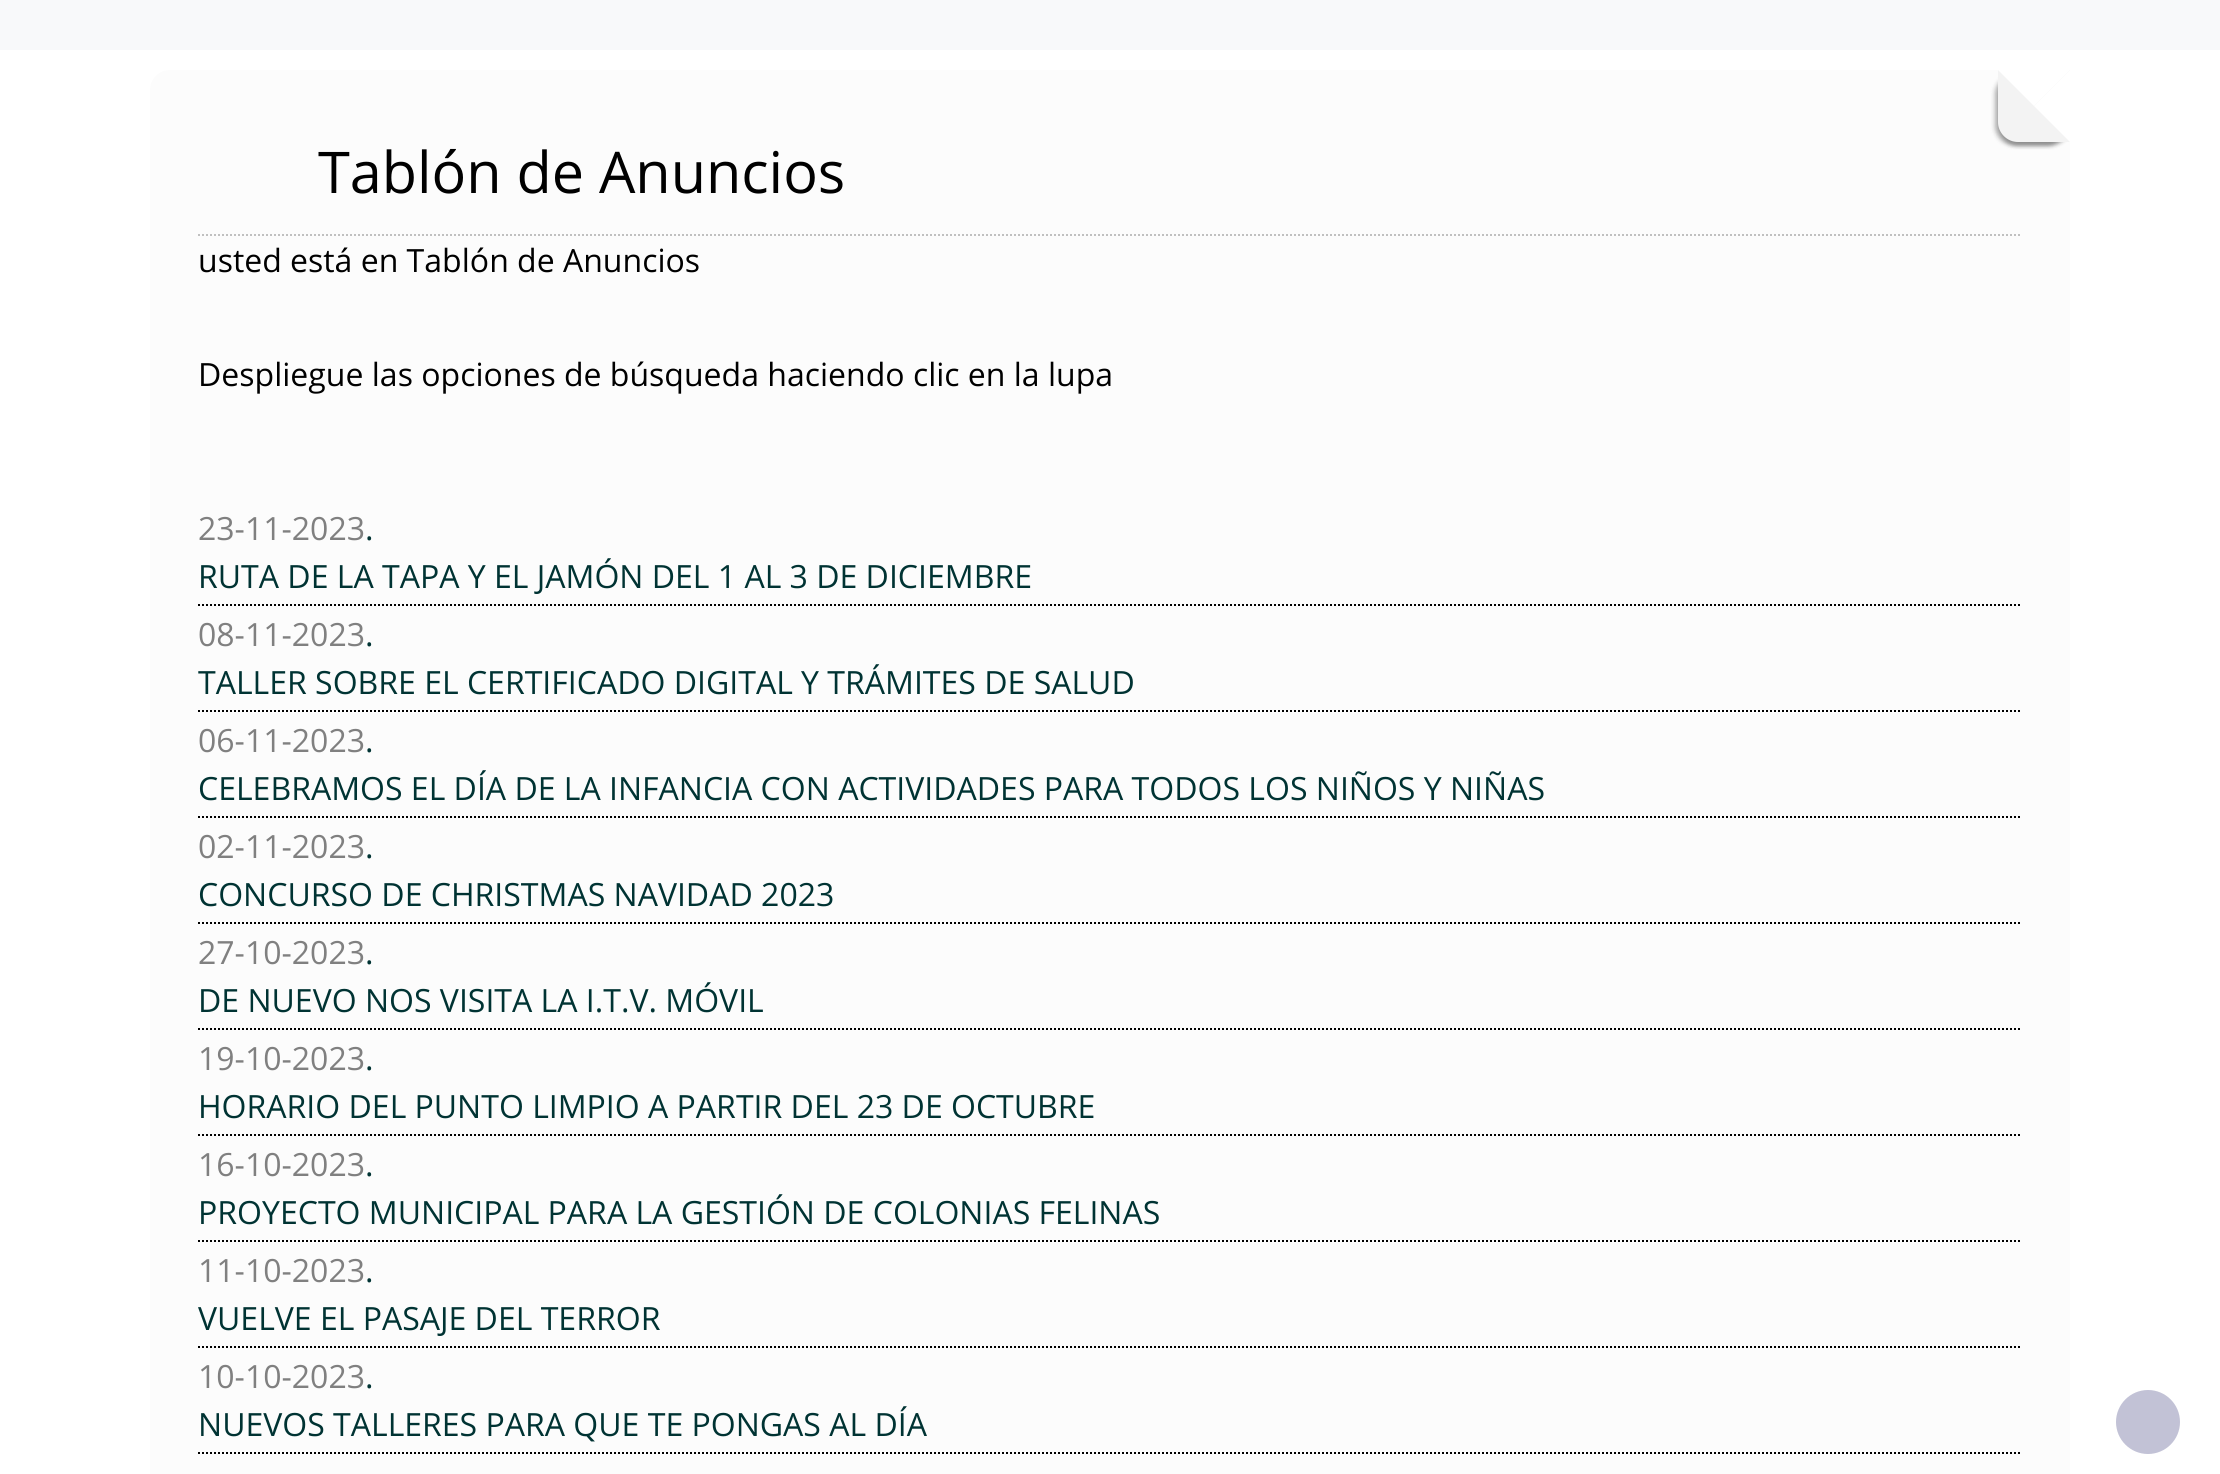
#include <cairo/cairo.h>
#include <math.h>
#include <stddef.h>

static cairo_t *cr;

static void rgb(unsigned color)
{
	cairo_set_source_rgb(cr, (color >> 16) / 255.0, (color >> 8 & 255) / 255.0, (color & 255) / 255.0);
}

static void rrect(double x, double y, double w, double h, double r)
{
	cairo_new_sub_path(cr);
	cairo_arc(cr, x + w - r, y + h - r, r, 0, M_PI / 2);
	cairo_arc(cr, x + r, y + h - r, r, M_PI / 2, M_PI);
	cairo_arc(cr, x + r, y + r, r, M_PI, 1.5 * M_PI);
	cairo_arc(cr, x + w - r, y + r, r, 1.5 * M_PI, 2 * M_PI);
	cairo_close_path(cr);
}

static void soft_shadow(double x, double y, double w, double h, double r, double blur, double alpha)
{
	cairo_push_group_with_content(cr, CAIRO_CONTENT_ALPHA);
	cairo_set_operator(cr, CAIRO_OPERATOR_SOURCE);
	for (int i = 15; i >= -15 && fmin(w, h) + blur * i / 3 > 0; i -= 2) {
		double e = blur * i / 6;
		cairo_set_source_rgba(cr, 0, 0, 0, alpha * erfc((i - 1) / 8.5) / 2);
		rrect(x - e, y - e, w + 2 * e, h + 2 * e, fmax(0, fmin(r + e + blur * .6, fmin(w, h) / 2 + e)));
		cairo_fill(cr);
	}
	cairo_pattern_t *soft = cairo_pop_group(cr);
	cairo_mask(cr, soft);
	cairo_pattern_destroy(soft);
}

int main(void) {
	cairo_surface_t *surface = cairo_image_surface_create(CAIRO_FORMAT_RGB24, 2220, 1474);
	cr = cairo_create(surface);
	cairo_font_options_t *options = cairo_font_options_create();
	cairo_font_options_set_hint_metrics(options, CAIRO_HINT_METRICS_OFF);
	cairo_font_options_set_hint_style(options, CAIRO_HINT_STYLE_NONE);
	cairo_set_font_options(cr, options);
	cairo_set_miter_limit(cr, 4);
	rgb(0xffffff);
	cairo_paint(cr);
	rgb(0xf8f9fa);
	cairo_rectangle(cr, 0, 0, 2220, 50);
	cairo_fill(cr);
	rgb(0xfcfcfc);
	cairo_new_path(cr);
	cairo_move_to(cr, 170, 70);
	cairo_line_to(cr, 2070, 70);
	cairo_line_to(cr, 2070, 1474);
	cairo_curve_to(cr, 2070, 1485, 2061, 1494, 2050, 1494);
	cairo_line_to(cr, 170, 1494);
	cairo_curve_to(cr, 159, 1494, 150, 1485, 150, 1474);
	cairo_line_to(cr, 150, 90);
	cairo_curve_to(cr, 150, 79, 159, 70, 170, 70);
	cairo_close_path(cr);
	cairo_fill(cr);
	rgb(0x000000);
	soft_shadow(1994, 74, 72, 72, 20, 2, 0.2);
	cairo_save(cr);
	cairo_new_path(cr);
	cairo_move_to(cr, 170, 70);
	cairo_line_to(cr, 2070, 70);
	cairo_line_to(cr, 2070, 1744);
	cairo_curve_to(cr, 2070, 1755, 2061, 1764, 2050, 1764);
	cairo_line_to(cr, 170, 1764);
	cairo_curve_to(cr, 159, 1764, 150, 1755, 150, 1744);
	cairo_line_to(cr, 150, 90);
	cairo_curve_to(cr, 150, 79, 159, 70, 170, 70);
	cairo_close_path(cr);
	cairo_clip(cr);
	soft_shadow(1998, 74, 72, 72, 20, 2, 0.3);
	cairo_restore(cr);
	rgb(0xf3f3f3);
	cairo_new_path(cr);
	cairo_move_to(cr, 1998, 70);
	cairo_line_to(cr, 2070, 70);
	cairo_line_to(cr, 2070, 142);
	cairo_line_to(cr, 2018, 142);
	cairo_curve_to(cr, 2007, 142, 1998, 133, 1998, 122);
	cairo_close_path(cr);
	cairo_fill(cr);
	rgb(0xffffff);
	cairo_new_path(cr);
	cairo_move_to(cr, 1998, 70);
	cairo_line_to(cr, 2034, 106);
	cairo_line_to(cr, 2070, 70);
	cairo_close_path(cr);
	cairo_fill(cr);
	cairo_new_path(cr);
	cairo_move_to(cr, 2070, 70);
	cairo_line_to(cr, 2034, 106);
	cairo_line_to(cr, 2070, 142);
	cairo_close_path(cr);
	cairo_fill(cr);
	cairo_new_path(cr);
	cairo_move_to(cr, 198, 235);
	cairo_line_to(cr, 2022, 235);
	rgb(0xc0c0c0);
	cairo_set_dash(cr, (double[]){2, 2}, 2, 0);
	cairo_stroke(cr);
	cairo_new_path(cr);
	cairo_move_to(cr, 198, 605);
	cairo_line_to(cr, 2022, 605);
	rgb(0x000000);
	cairo_stroke(cr);
	cairo_new_path(cr);
	cairo_move_to(cr, 198, 711);
	cairo_line_to(cr, 2022, 711);
	cairo_stroke(cr);
	cairo_new_path(cr);
	cairo_move_to(cr, 198, 817);
	cairo_line_to(cr, 2022, 817);
	cairo_stroke(cr);
	cairo_new_path(cr);
	cairo_move_to(cr, 198, 923);
	cairo_line_to(cr, 2022, 923);
	cairo_stroke(cr);
	cairo_new_path(cr);
	cairo_move_to(cr, 198, 1029);
	cairo_line_to(cr, 2022, 1029);
	cairo_stroke(cr);
	cairo_new_path(cr);
	cairo_move_to(cr, 198, 1135);
	cairo_line_to(cr, 2022, 1135);
	cairo_stroke(cr);
	cairo_new_path(cr);
	cairo_move_to(cr, 198, 1241);
	cairo_line_to(cr, 2022, 1241);
	cairo_stroke(cr);
	cairo_new_path(cr);
	cairo_move_to(cr, 198, 1347);
	cairo_line_to(cr, 2022, 1347);
	cairo_stroke(cr);
	cairo_new_path(cr);
	cairo_move_to(cr, 198, 1453);
	cairo_line_to(cr, 2022, 1453);
	cairo_stroke(cr);
	rgb(0xc2c2d6);
	cairo_arc(cr, 2148, 1422, 32, 0, 2 * M_PI);
	cairo_fill(cr);
	cairo_select_font_face(cr, "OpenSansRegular", CAIRO_FONT_SLANT_NORMAL, CAIRO_FONT_WEIGHT_NORMAL);
	cairo_set_font_size(cr, 57.5);
	rgb(0x000000);
	cairo_move_to(cr, 318, 193);
	cairo_show_text(cr, "Tablón de Anuncios");
	cairo_set_font_size(cr, 32);
	cairo_move_to(cr, 198, 272);
	cairo_show_text(cr, "usted está en Tablón de Anuncios");
	cairo_move_to(cr, 198, 386);
	cairo_show_text(cr, "Despliegue las opciones de búsqueda haciendo clic en la lupa");
	rgb(0x808080);
	cairo_move_to(cr, 198, 540);
	cairo_show_text(cr, "23-11-2023");
	rgb(0x003333);
	cairo_move_to(cr, 365, 540);
	cairo_show_text(cr, ".");
	cairo_move_to(cr, 198, 588);
	cairo_show_text(cr, "RUTA DE LA TAPA Y EL JAMÓN DEL 1 AL 3 DE DICIEMBRE");
	rgb(0x808080);
	cairo_move_to(cr, 198, 646);
	cairo_show_text(cr, "08-11-2023");
	rgb(0x003333);
	cairo_move_to(cr, 365, 646);
	cairo_show_text(cr, ".");
	cairo_move_to(cr, 198, 694);
	cairo_show_text(cr, "TALLER SOBRE EL CERTIFICADO DIGITAL Y TRÁMITES DE SALUD");
	rgb(0x808080);
	cairo_move_to(cr, 198, 752);
	cairo_show_text(cr, "06-11-2023");
	rgb(0x003333);
	cairo_move_to(cr, 365, 752);
	cairo_show_text(cr, ".");
	cairo_move_to(cr, 198, 800);
	cairo_show_text(cr, "CELEBRAMOS EL DÍA DE LA INFANCIA CON ACTIVIDADES PARA TODOS LOS NIÑOS Y NIÑAS");
	rgb(0x808080);
	cairo_move_to(cr, 198, 858);
	cairo_show_text(cr, "02-11-2023");
	rgb(0x003333);
	cairo_move_to(cr, 365, 858);
	cairo_show_text(cr, ".");
	cairo_move_to(cr, 198, 906);
	cairo_show_text(cr, "CONCURSO DE CHRISTMAS NAVIDAD 2023");
	rgb(0x808080);
	cairo_move_to(cr, 198, 964);
	cairo_show_text(cr, "27-10-2023");
	rgb(0x003333);
	cairo_move_to(cr, 365, 964);
	cairo_show_text(cr, ".");
	cairo_move_to(cr, 198, 1012);
	cairo_show_text(cr, "DE NUEVO NOS VISITA LA I.T.V. MÓVIL");
	rgb(0x808080);
	cairo_move_to(cr, 198, 1070);
	cairo_show_text(cr, "19-10-2023");
	rgb(0x003333);
	cairo_move_to(cr, 365, 1070);
	cairo_show_text(cr, ".");
	cairo_move_to(cr, 198, 1118);
	cairo_show_text(cr, "HORARIO DEL PUNTO LIMPIO A PARTIR DEL 23 DE OCTUBRE");
	rgb(0x808080);
	cairo_move_to(cr, 198, 1176);
	cairo_show_text(cr, "16-10-2023");
	rgb(0x003333);
	cairo_move_to(cr, 365, 1176);
	cairo_show_text(cr, ".");
	cairo_move_to(cr, 198, 1224);
	cairo_show_text(cr, "PROYECTO MUNICIPAL PARA LA GESTIÓN DE COLONIAS FELINAS");
	rgb(0x808080);
	cairo_move_to(cr, 198, 1282);
	cairo_show_text(cr, "11-10-2023");
	rgb(0x003333);
	cairo_move_to(cr, 365, 1282);
	cairo_show_text(cr, ".");
	cairo_move_to(cr, 198, 1330);
	cairo_show_text(cr, "VUELVE EL PASAJE DEL TERROR");
	rgb(0x808080);
	cairo_move_to(cr, 198, 1388);
	cairo_show_text(cr, "10-10-2023");
	rgb(0x003333);
	cairo_move_to(cr, 365, 1388);
	cairo_show_text(cr, ".");
	cairo_move_to(cr, 198, 1436);
	cairo_show_text(cr, "NUEVOS TALLERES PARA QUE TE PONGAS AL DÍA");
	cairo_surface_write_to_png(surface, "page.png");
	cairo_font_options_destroy(options);
	cairo_destroy(cr);
	cairo_surface_destroy(surface);
	return 0;
}
